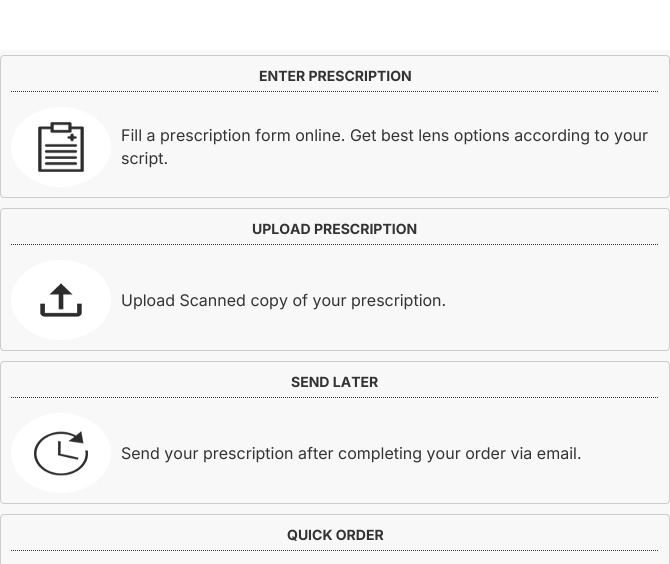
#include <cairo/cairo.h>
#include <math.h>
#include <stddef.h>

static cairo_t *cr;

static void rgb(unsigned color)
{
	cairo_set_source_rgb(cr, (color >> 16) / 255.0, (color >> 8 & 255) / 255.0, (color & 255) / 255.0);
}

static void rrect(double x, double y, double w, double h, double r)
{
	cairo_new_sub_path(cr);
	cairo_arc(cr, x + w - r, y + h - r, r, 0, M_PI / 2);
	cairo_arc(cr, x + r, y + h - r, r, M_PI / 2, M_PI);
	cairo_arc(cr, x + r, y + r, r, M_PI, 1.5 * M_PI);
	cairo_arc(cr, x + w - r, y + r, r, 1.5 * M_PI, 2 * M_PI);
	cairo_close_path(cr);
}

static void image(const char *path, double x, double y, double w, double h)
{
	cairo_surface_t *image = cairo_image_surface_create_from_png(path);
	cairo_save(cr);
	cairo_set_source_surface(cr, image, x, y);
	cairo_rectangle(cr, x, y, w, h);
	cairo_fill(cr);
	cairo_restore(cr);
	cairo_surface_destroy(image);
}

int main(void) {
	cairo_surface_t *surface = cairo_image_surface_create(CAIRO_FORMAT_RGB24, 670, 564);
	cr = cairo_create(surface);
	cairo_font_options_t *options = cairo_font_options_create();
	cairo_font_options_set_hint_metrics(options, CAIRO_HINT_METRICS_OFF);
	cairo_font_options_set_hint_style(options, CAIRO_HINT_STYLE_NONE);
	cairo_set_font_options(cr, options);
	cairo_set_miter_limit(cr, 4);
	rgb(0xffffff);
	cairo_paint(cr);
	rgb(0xf8f8f8);
	cairo_rectangle(cr, 0, 50, 670, 514);
	cairo_fill(cr);
	rrect(0.5, 55.5, 669, 142, 3.5);
	rgb(0xcccccc);
	cairo_set_line_width(cr, 1);
	cairo_stroke(cr);
	cairo_new_path(cr);
	cairo_move_to(cr, 11, 91.5);
	cairo_line_to(cr, 659, 91.5);
	rgb(0x333333);
	cairo_set_dash(cr, (double[]){1, 1}, 2, 0);
	cairo_stroke(cr);
	rgb(0xffffff);
	cairo_new_path(cr);
	cairo_move_to(cr, 61, 107);
	cairo_curve_to(cr, 88.5, 107, 111, 125, 111, 147);
	cairo_curve_to(cr, 111, 169, 88.5, 187, 61, 187);
	cairo_curve_to(cr, 33.5, 187, 11, 169, 11, 147);
	cairo_curve_to(cr, 11, 125, 33.5, 107, 61, 107);
	cairo_close_path(cr);
	cairo_fill(cr);
	image("img/1.png", 38, 122, 46, 50);
	rrect(0.5, 208.5, 669, 142, 3.5);
	rgb(0xcccccc);
	cairo_set_dash(cr, NULL, 0, 0);
	cairo_stroke(cr);
	cairo_new_path(cr);
	cairo_move_to(cr, 11, 244.5);
	cairo_line_to(cr, 659, 244.5);
	rgb(0x333333);
	cairo_set_dash(cr, (double[]){1, 1}, 2, 0);
	cairo_stroke(cr);
	rgb(0xffffff);
	cairo_new_path(cr);
	cairo_move_to(cr, 61, 260);
	cairo_curve_to(cr, 88.5, 260, 111, 278, 111, 300);
	cairo_curve_to(cr, 111, 322, 88.5, 340, 61, 340);
	cairo_curve_to(cr, 33.5, 340, 11, 322, 11, 300);
	cairo_curve_to(cr, 11, 278, 33.5, 260, 61, 260);
	cairo_close_path(cr);
	cairo_fill(cr);
	image("img/2.png", 40, 283, 42, 34);
	rrect(0.5, 361.5, 669, 142, 3.5);
	rgb(0xcccccc);
	cairo_set_dash(cr, NULL, 0, 0);
	cairo_stroke(cr);
	cairo_new_path(cr);
	cairo_move_to(cr, 11, 397.5);
	cairo_line_to(cr, 659, 397.5);
	rgb(0x333333);
	cairo_set_dash(cr, (double[]){1, 1}, 2, 0);
	cairo_stroke(cr);
	rgb(0xffffff);
	cairo_new_path(cr);
	cairo_move_to(cr, 61, 413);
	cairo_curve_to(cr, 88.5, 413, 111, 431, 111, 453);
	cairo_curve_to(cr, 111, 475, 88.5, 493, 61, 493);
	cairo_curve_to(cr, 33.5, 493, 11, 475, 11, 453);
	cairo_curve_to(cr, 11, 431, 33.5, 413, 61, 413);
	cairo_close_path(cr);
	cairo_fill(cr);
	image("img/3.png", 34, 431, 54, 45);
	rrect(0.5, 514.5, 669, 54, 3.5);
	rgb(0xcccccc);
	cairo_set_dash(cr, NULL, 0, 0);
	cairo_stroke(cr);
	cairo_new_path(cr);
	cairo_move_to(cr, 11, 550.5);
	cairo_line_to(cr, 659, 550.5);
	rgb(0x333333);
	cairo_set_dash(cr, (double[]){1, 1}, 2, 0);
	cairo_stroke(cr);
	cairo_select_font_face(cr, "Inter", CAIRO_FONT_SLANT_NORMAL, CAIRO_FONT_WEIGHT_BOLD);
	cairo_set_font_size(cr, 14);
	cairo_move_to(cr, 259, 81);
	cairo_show_text(cr, "ENTER PRESCRIPTION");
	cairo_select_font_face(cr, "Inter", CAIRO_FONT_SLANT_NORMAL, CAIRO_FONT_WEIGHT_NORMAL);
	cairo_set_font_size(cr, 16);
	cairo_move_to(cr, 121, 141);
	cairo_show_text(cr, "Fill a prescription form online. Get best lens options according to your");
	cairo_move_to(cr, 121, 164);
	cairo_show_text(cr, "script.");
	cairo_select_font_face(cr, "Inter", CAIRO_FONT_SLANT_NORMAL, CAIRO_FONT_WEIGHT_BOLD);
	cairo_set_font_size(cr, 14);
	cairo_move_to(cr, 252, 234);
	cairo_show_text(cr, "UPLOAD PRESCRIPTION");
	cairo_select_font_face(cr, "Inter", CAIRO_FONT_SLANT_NORMAL, CAIRO_FONT_WEIGHT_NORMAL);
	cairo_set_font_size(cr, 16);
	cairo_move_to(cr, 121, 306);
	cairo_show_text(cr, "Upload Scanned copy of your prescription.");
	cairo_select_font_face(cr, "Inter", CAIRO_FONT_SLANT_NORMAL, CAIRO_FONT_WEIGHT_BOLD);
	cairo_set_font_size(cr, 14);
	cairo_move_to(cr, 291, 387);
	cairo_show_text(cr, "SEND LATER");
	cairo_select_font_face(cr, "Inter", CAIRO_FONT_SLANT_NORMAL, CAIRO_FONT_WEIGHT_NORMAL);
	cairo_set_font_size(cr, 16);
	cairo_move_to(cr, 121, 459);
	cairo_show_text(cr, "Send your prescription after completing your order via email.");
	cairo_select_font_face(cr, "Inter", CAIRO_FONT_SLANT_NORMAL, CAIRO_FONT_WEIGHT_BOLD);
	cairo_set_font_size(cr, 14);
	cairo_move_to(cr, 287, 540);
	cairo_show_text(cr, "QUICK ORDER");
	cairo_surface_write_to_png(surface, "page.png");
	cairo_font_options_destroy(options);
	cairo_destroy(cr);
	cairo_surface_destroy(surface);
	return 0;
}
